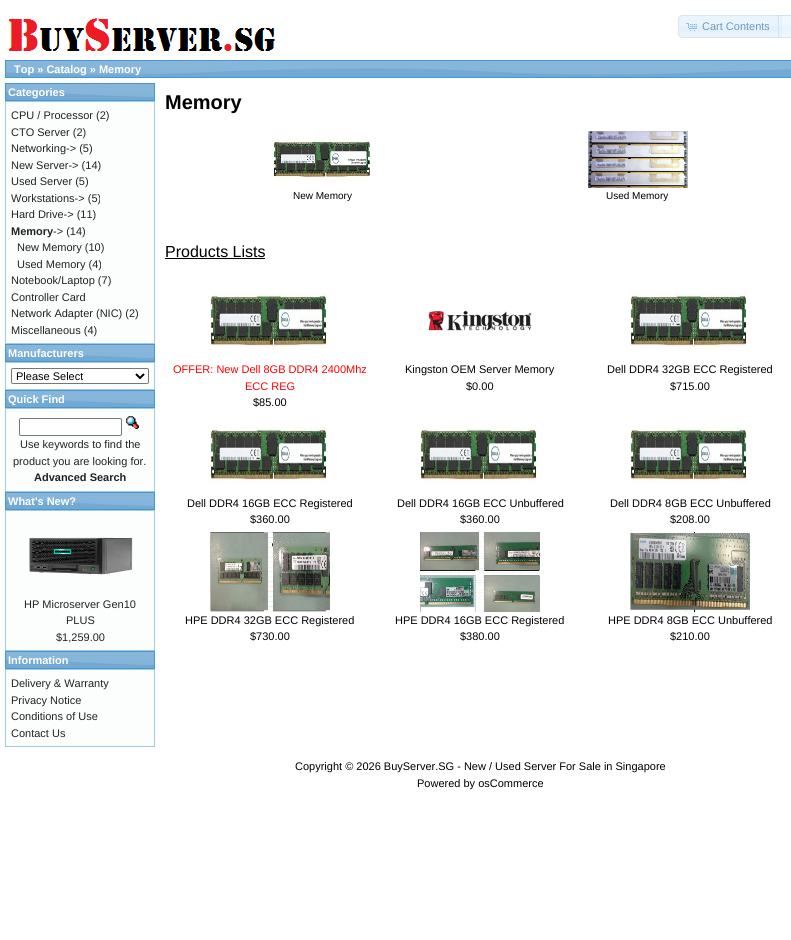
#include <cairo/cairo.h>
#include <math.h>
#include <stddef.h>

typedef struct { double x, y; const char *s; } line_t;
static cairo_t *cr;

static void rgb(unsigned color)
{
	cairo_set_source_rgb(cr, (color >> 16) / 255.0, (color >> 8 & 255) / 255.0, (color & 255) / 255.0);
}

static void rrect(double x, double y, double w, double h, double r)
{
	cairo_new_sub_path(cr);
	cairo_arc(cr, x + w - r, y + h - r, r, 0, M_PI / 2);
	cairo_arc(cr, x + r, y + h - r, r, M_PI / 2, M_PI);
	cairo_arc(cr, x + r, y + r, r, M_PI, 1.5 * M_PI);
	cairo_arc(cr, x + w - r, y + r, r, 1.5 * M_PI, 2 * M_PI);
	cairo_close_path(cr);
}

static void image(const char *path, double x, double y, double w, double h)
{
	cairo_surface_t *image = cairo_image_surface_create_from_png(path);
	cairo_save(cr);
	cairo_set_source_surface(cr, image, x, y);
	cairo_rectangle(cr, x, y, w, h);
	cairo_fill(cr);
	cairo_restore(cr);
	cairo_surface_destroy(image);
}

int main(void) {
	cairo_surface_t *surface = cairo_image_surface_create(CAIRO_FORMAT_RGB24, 791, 940);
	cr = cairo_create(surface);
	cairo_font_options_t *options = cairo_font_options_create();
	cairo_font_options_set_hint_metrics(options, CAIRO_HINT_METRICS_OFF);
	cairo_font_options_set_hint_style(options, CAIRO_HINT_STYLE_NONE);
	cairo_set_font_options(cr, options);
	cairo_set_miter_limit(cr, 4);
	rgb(0xffffff);
	cairo_paint(cr);
	image("img/1.png", 8, 18, 267, 33);
	rgb(0xe9f4fd);
	cairo_new_path(cr);
	cairo_move_to(cr, 683, 15);
	cairo_line_to(cr, 782, 15);
	cairo_line_to(cr, 782, 38);
	cairo_line_to(cr, 683, 38);
	cairo_curve_to(cr, 680, 38, 678, 36, 678, 33);
	cairo_line_to(cr, 678, 20);
	cairo_curve_to(cr, 678, 17, 680, 15, 683, 15);
	cairo_close_path(cr);
	cairo_fill(cr);
	rgb(0xe3f1fc);
	cairo_rectangle(cr, 678, 26, 104, 6);
	cairo_fill(cr);
	cairo_new_path(cr);
	cairo_move_to(cr, 683, 15.5);
	cairo_line_to(cr, 781.5, 15.5);
	cairo_line_to(cr, 781.5, 37.5);
	cairo_line_to(cr, 683, 37.5);
	cairo_curve_to(cr, 680.5, 37.5, 678.5, 35.5, 678.5, 33);
	cairo_line_to(cr, 678.5, 20);
	cairo_curve_to(cr, 678.5, 17.5, 680.5, 15.5, 683, 15.5);
	cairo_close_path(cr);
	rgb(0xd6e6f2);
	cairo_set_line_width(cr, 1);
	cairo_stroke(cr);
	image("img/2.png", 686, 23, 11, 8);
	image("img/3.png", 778, 15, 13, 23);
	cairo_rectangle(cr, 778.5, 15.5, 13, 22);
	cairo_set_source_rgba(cr, 0.773, 0.859, 0.925, 0.7);
	cairo_stroke(cr);
	image("img/4.png", 6, 61, 785, 16);
	cairo_rectangle(cr, 5.5, 60.5, 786, 17);
	rgb(0x4297d7);
	cairo_stroke(cr);
	image("img/5.png", 6, 84, 148, 16);
	cairo_rectangle(cr, 5.5, 83.5, 149, 17);
	cairo_stroke(cr);
	rgb(0xfcfdfd);
	cairo_rectangle(cr, 5.5, 101.5, 149, 242);
	cairo_fill_preserve(cr);
	rgb(0xa6c9e2);
	cairo_stroke(cr);
	image("img/5.png", 6, 345, 148, 16);
	cairo_rectangle(cr, 5.5, 344.5, 149, 17);
	rgb(0x4297d7);
	cairo_stroke(cr);
	rgb(0xfcfdfd);
	cairo_rectangle(cr, 5.5, 362.5, 149, 27);
	cairo_fill_preserve(cr);
	rgb(0xa6c9e2);
	cairo_stroke(cr);
	rgb(0xffffff);
	rrect(11.5, 368.5, 137, 15, 1.5);
	cairo_fill_preserve(cr);
	rgb(0x767676);
	cairo_stroke(cr);
	cairo_new_path(cr);
	cairo_move_to(cr, 136, 374);
	cairo_line_to(cr, 140, 378);
	cairo_line_to(cr, 144, 374);
	rgb(0x000000);
	cairo_set_line_width(cr, 2);
	cairo_stroke(cr);
	image("img/5.png", 6, 391, 148, 16);
	cairo_rectangle(cr, 5.5, 390.5, 149, 17);
	rgb(0x4297d7);
	cairo_set_line_width(cr, 1);
	cairo_stroke(cr);
	rgb(0xfcfdfd);
	cairo_rectangle(cr, 5.5, 408.5, 149, 83);
	cairo_fill_preserve(cr);
	rgb(0xa6c9e2);
	cairo_stroke(cr);
	rgb(0xffffff);
	rrect(19.5, 418.5, 102, 17, 1.5);
	cairo_fill_preserve(cr);
	rgb(0x767676);
	cairo_stroke(cr);
	image("img/6.png", 126, 416, 13, 13);
	image("img/5.png", 6, 493, 148, 16);
	cairo_rectangle(cr, 5.5, 492.5, 149, 17);
	rgb(0x4297d7);
	cairo_stroke(cr);
	rgb(0xfcfdfd);
	cairo_rectangle(cr, 5.5, 510.5, 149, 140);
	cairo_fill_preserve(cr);
	rgb(0xa6c9e2);
	cairo_stroke(cr);
	image("img/7.png", 29, 537, 104, 38);
	image("img/5.png", 6, 652, 148, 16);
	cairo_rectangle(cr, 5.5, 651.5, 149, 17);
	rgb(0x4297d7);
	cairo_stroke(cr);
	rgb(0xfcfdfd);
	cairo_rectangle(cr, 5.5, 669.5, 149, 77);
	cairo_fill_preserve(cr);
	rgb(0xa6c9e2);
	cairo_stroke(cr);
	image("img/8.png", 273, 139, 98, 42);
	image("img/9.png", 588, 131, 100, 57);
	rgb(0x000000);
	cairo_rectangle(cr, 165, 258, 100, 1);
	cairo_fill(cr);
	image("img/10.png", 210, 292, 118, 59);
	image("img/11.png", 428, 311, 104, 20);
	image("img/10.png", 630, 292, 118, 59);
	image("img/10.png", 210, 426, 118, 59);
	image("img/10.png", 420, 426, 118, 59);
	image("img/10.png", 630, 426, 118, 59);
	image("img/12.png", 210, 532, 120, 80);
	image("img/13.png", 420, 532, 120, 80);
	image("img/14.png", 630, 532, 120, 80);
	cairo_select_font_face(cr, "Liberation Sans", CAIRO_FONT_SLANT_NORMAL, CAIRO_FONT_WEIGHT_NORMAL);
	cairo_set_font_size(cr, 11);
	rgb(0x6d9abb);
	cairo_move_to(cr, 702, 30);
	cairo_show_text(cr, "Cart Contents");
	cairo_select_font_face(cr, "Liberation Sans", CAIRO_FONT_SLANT_NORMAL, CAIRO_FONT_WEIGHT_BOLD);
	rgb(0xffffff);
	cairo_move_to(cr, 14, 73);
	cairo_show_text(cr, "Top » Catalog » Memory");
	cairo_move_to(cr, 8, 96);
	cairo_show_text(cr, "Categories");
	cairo_select_font_face(cr, "Liberation Sans", CAIRO_FONT_SLANT_NORMAL, CAIRO_FONT_WEIGHT_NORMAL);
	rgb(0x222222);
	{
		static const line_t items[] = {
			{11, 119, "CPU / Processor (2)"},
			{11, 136, "CTO Server (2)"},
			{11, 152, "Networking-> (5)"},
			{11, 169, "New Server-> (14)"},
			{11, 185, "Used Server (5)"},
			{11, 202, "Workstations-> (5)"},
			{11, 218, "Hard Drive-> (11)"},
		};
		for (size_t i = 0; i < sizeof items / sizeof *items; i++) {
			cairo_move_to(cr, items[i].x, items[i].y);
			cairo_show_text(cr, items[i].s);
		}
	}
	cairo_select_font_face(cr, "Liberation Sans", CAIRO_FONT_SLANT_NORMAL, CAIRO_FONT_WEIGHT_BOLD);
	cairo_move_to(cr, 11, 235);
	cairo_show_text(cr, "Memory");
	cairo_select_font_face(cr, "Liberation Sans", CAIRO_FONT_SLANT_NORMAL, CAIRO_FONT_WEIGHT_NORMAL);
	{
		static const line_t items[] = {
			{53, 235, "-> (14)"},
			{17, 251, "New Memory (10)"},
			{17, 268, "Used Memory (4)"},
			{11, 284, "Notebook/Laptop (7)"},
			{11, 301, "Controller Card"},
			{11, 317, "Network Adapter (NIC) (2)"},
			{11, 334, "Miscellaneous (4)"},
		};
		for (size_t i = 0; i < sizeof items / sizeof *items; i++) {
			cairo_move_to(cr, items[i].x, items[i].y);
			cairo_show_text(cr, items[i].s);
		}
	}
	cairo_select_font_face(cr, "Liberation Sans", CAIRO_FONT_SLANT_NORMAL, CAIRO_FONT_WEIGHT_BOLD);
	rgb(0xffffff);
	cairo_move_to(cr, 8, 357);
	cairo_show_text(cr, "Manufacturers");
	cairo_select_font_face(cr, "Liberation Sans", CAIRO_FONT_SLANT_NORMAL, CAIRO_FONT_WEIGHT_NORMAL);
	rgb(0x000000);
	cairo_move_to(cr, 16, 380);
	cairo_show_text(cr, "Please Select");
	cairo_select_font_face(cr, "Liberation Sans", CAIRO_FONT_SLANT_NORMAL, CAIRO_FONT_WEIGHT_BOLD);
	rgb(0xffffff);
	cairo_move_to(cr, 8, 403);
	cairo_show_text(cr, "Quick Find");
	cairo_select_font_face(cr, "Liberation Sans", CAIRO_FONT_SLANT_NORMAL, CAIRO_FONT_WEIGHT_NORMAL);
	rgb(0x222222);
	cairo_move_to(cr, 20, 448);
	cairo_show_text(cr, "Use keywords to find the");
	cairo_move_to(cr, 13, 465);
	cairo_show_text(cr, "product you are looking for.");
	cairo_select_font_face(cr, "Liberation Sans", CAIRO_FONT_SLANT_NORMAL, CAIRO_FONT_WEIGHT_BOLD);
	cairo_move_to(cr, 34, 481);
	cairo_show_text(cr, "Advanced Search");
	rgb(0xffffff);
	cairo_move_to(cr, 8, 505);
	cairo_show_text(cr, "What's New?");
	cairo_select_font_face(cr, "Liberation Sans", CAIRO_FONT_SLANT_NORMAL, CAIRO_FONT_WEIGHT_NORMAL);
	rgb(0x222222);
	{
		static const line_t items[] = {
			{24, 608, "HP Microserver Gen10"},
			{66, 624, "PLUS"},
			{56, 641, "$1,259.00"},
		};
		for (size_t i = 0; i < sizeof items / sizeof *items; i++) {
			cairo_move_to(cr, items[i].x, items[i].y);
			cairo_show_text(cr, items[i].s);
		}
	}
	cairo_select_font_face(cr, "Liberation Sans", CAIRO_FONT_SLANT_NORMAL, CAIRO_FONT_WEIGHT_BOLD);
	rgb(0xffffff);
	cairo_move_to(cr, 8, 664);
	cairo_show_text(cr, "Information");
	cairo_select_font_face(cr, "Liberation Sans", CAIRO_FONT_SLANT_NORMAL, CAIRO_FONT_WEIGHT_NORMAL);
	rgb(0x222222);
	{
		static const line_t items[] = {
			{11, 687, "Delivery & Warranty"},
			{11, 704, "Privacy Notice"},
			{11, 720, "Conditions of Use"},
			{11, 737, "Contact Us"},
		};
		for (size_t i = 0; i < sizeof items / sizeof *items; i++) {
			cairo_move_to(cr, items[i].x, items[i].y);
			cairo_show_text(cr, items[i].s);
		}
	}
	cairo_select_font_face(cr, "Liberation Sans", CAIRO_FONT_SLANT_NORMAL, CAIRO_FONT_WEIGHT_BOLD);
	cairo_set_font_size(cr, 20);
	rgb(0x000000);
	cairo_move_to(cr, 165, 109);
	cairo_show_text(cr, "Memory");
	cairo_select_font_face(cr, "Liberation Sans", CAIRO_FONT_SLANT_NORMAL, CAIRO_FONT_WEIGHT_NORMAL);
	cairo_set_font_size(cr, 10);
	cairo_move_to(cr, 293, 199);
	cairo_show_text(cr, "New Memory");
	cairo_move_to(cr, 606, 199);
	cairo_show_text(cr, "Used Memory");
	cairo_set_font_size(cr, 16);
	cairo_move_to(cr, 165, 257);
	cairo_show_text(cr, "Products Lists");
	cairo_set_font_size(cr, 11);
	rgb(0xff0000);
	cairo_move_to(cr, 173, 373);
	cairo_show_text(cr, "OFFER: New Dell 8GB DDR4 2400Mhz");
	cairo_move_to(cr, 245, 390);
	cairo_show_text(cr, "ECC REG");
	rgb(0x000000);
	{
		static const line_t items[] = {
			{253, 406, "$85.00"},
			{405, 373, "Kingston OEM Server Memory"},
			{466, 390, "$0.00"},
			{607, 373, "Dell DDR4 32GB ECC Registered"},
			{670, 390, "$715.00"},
			{187, 507, "Dell DDR4 16GB ECC Registered"},
			{250, 523, "$360.00"},
			{397, 507, "Dell DDR4 16GB ECC Unbuffered"},
			{460, 523, "$360.00"},
			{610, 507, "Dell DDR4 8GB ECC Unbuffered"},
			{670, 523, "$208.00"},
			{185, 624, "HPE DDR4 32GB ECC Registered"},
			{250, 640, "$730.00"},
			{395, 624, "HPE DDR4 16GB ECC Registered"},
			{460, 640, "$380.00"},
			{608, 624, "HPE DDR4 8GB ECC Unbuffered"},
			{670, 640, "$210.00"},
			{295, 770, "Copyright © 2026 BuyServer.SG - New / Used Server For Sale in Singapore"},
			{417, 787, "Powered by osCommerce"},
		};
		for (size_t i = 0; i < sizeof items / sizeof *items; i++) {
			cairo_move_to(cr, items[i].x, items[i].y);
			cairo_show_text(cr, items[i].s);
		}
	}
	cairo_surface_write_to_png(surface, "page.png");
	cairo_font_options_destroy(options);
	cairo_destroy(cr);
	cairo_surface_destroy(surface);
	return 0;
}
